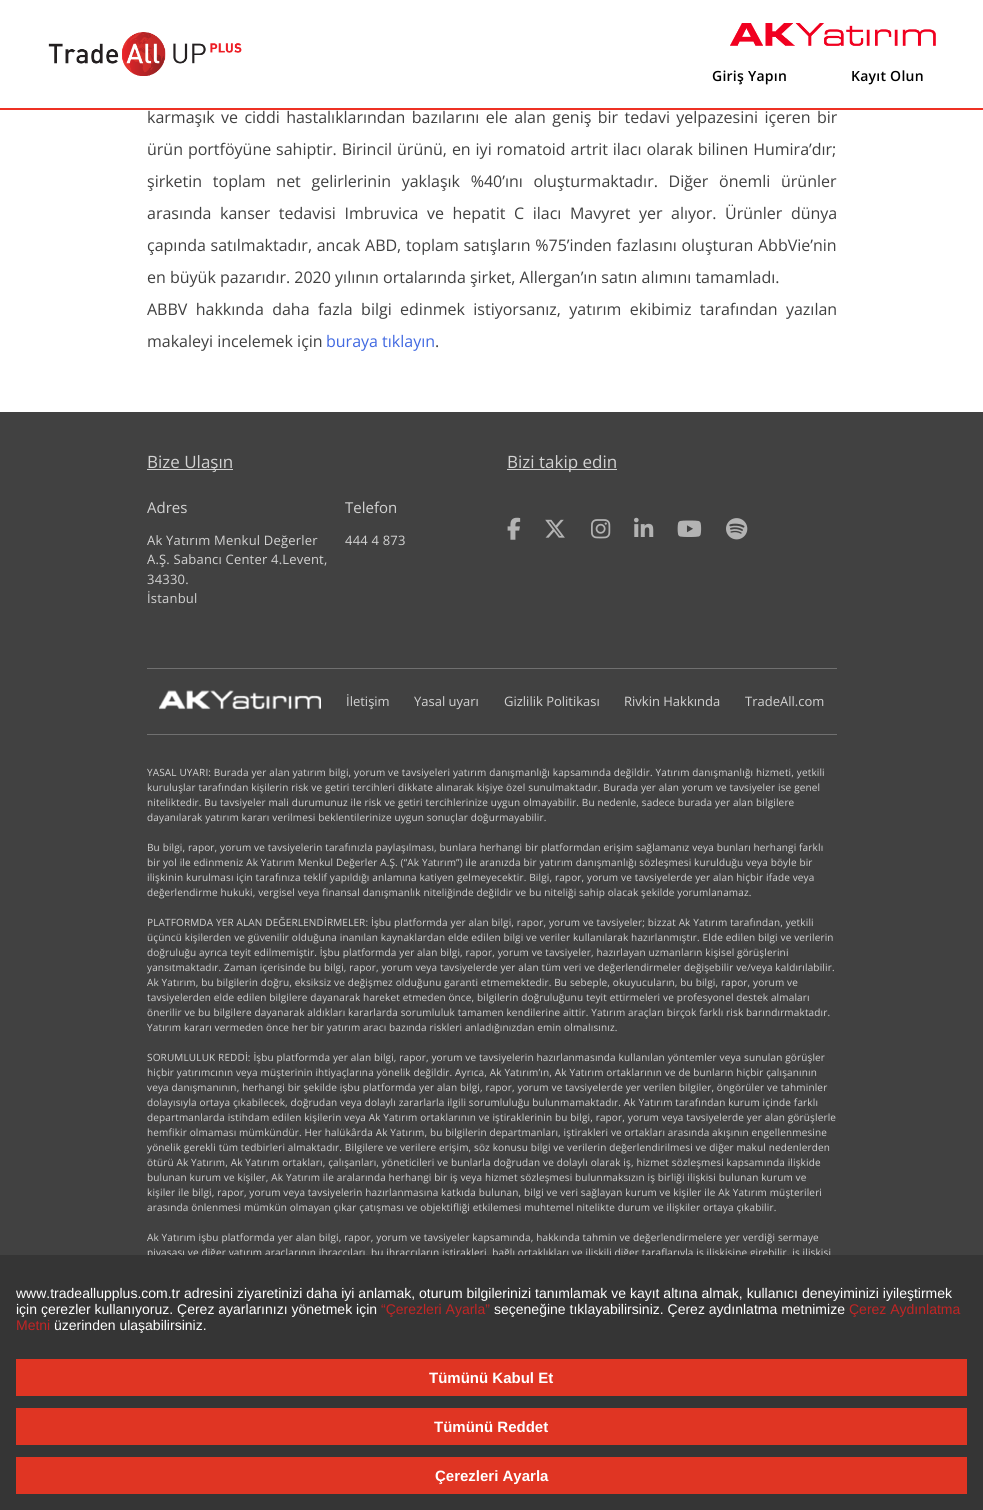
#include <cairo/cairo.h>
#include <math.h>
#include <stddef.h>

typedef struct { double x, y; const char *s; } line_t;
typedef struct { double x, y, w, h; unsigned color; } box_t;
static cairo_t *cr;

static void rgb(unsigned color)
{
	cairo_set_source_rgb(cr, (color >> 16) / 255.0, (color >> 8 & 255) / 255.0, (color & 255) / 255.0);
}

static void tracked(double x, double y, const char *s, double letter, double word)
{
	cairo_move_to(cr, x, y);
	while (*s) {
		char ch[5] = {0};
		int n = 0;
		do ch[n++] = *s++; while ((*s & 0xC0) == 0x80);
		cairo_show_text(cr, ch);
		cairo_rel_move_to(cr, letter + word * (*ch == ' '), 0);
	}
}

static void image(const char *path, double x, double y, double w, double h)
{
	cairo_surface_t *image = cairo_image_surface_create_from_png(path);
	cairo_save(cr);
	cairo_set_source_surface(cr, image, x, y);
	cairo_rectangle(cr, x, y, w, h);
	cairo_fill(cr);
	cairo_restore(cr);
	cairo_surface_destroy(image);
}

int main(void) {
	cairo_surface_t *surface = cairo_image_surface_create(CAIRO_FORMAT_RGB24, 983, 1510);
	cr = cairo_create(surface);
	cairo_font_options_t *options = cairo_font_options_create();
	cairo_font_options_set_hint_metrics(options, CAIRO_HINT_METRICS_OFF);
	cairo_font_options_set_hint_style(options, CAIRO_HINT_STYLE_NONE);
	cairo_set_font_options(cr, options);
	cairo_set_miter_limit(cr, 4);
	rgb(0xffffff);
	cairo_paint(cr);
	rgb(0xee3124);
	cairo_rectangle(cr, 0, 108, 983, 2);
	cairo_fill(cr);
	image("img/1.png", 48, 32, 194, 44);
	image("img/2.png", 730, 23, 206, 23);
	{
		static const box_t items[] = {
			{0, 412, 983, 843, 0x414141},
			{147, 469, 86, 1, 0xd3d3d3},
			{507, 469, 110, 1, 0xd3d3d3},
		};
		for (size_t i = 0; i < sizeof items / sizeof *items; i++) {
			rgb(items[i].color);
			cairo_rectangle(cr, items[i].x, items[i].y, items[i].w, items[i].h);
			cairo_fill(cr);
		}
	}
	image("img/3.png", 507, 517, 14, 23);
	image("img/4.png", 545, 519, 20, 19);
	image("img/5.png", 591, 519, 20, 20);
	image("img/6.png", 634, 517, 20, 20);
	image("img/7.png", 677, 520, 25, 17);
	image("img/8.png", 726, 518, 22, 22);
	rgb(0x707070);
	cairo_rectangle(cr, 147, 668, 690, 1);
	cairo_fill(cr);
	cairo_rectangle(cr, 147, 734, 690, 1);
	cairo_fill(cr);
	image("img/9.png", 159, 690, 162, 20);
	cairo_select_font_face(cr, "Open Sans SemiBold", CAIRO_FONT_SLANT_NORMAL, CAIRO_FONT_WEIGHT_NORMAL);
	cairo_set_font_size(cr, 14);
	rgb(0x000000);
	tracked(712, 81, "Giriş Yapın", 0.25, 0);
	tracked(851, 81, "Kayıt Olun", 0.25, 0);
	cairo_select_font_face(cr, "Open Sans", CAIRO_FONT_SLANT_NORMAL, CAIRO_FONT_WEIGHT_NORMAL);
	cairo_set_font_size(cr, 16);
	rgb(0x404040);
	tracked(147, 123, "karmaşık ve ciddi hastalıklarından bazılarını ele alan geniş bir tedavi yelpazesini içeren bir", 0, 2.25);
	tracked(147, 155, "ürün portföyüne sahiptir. Birincil ürünü, en iyi romatoid artrit ilacı olarak bilinen Humira’dır;", 0, 0.75);
	tracked(147, 187, "şirketin toplam net gelirlerinin yaklaşık %40’ını oluşturmaktadır. Diğer önemli ürünler", 0, 6.5);
	tracked(147, 219, "arasında kanser tedavisi Imbruvica ve hepatit C ilacı Mavyret yer alıyor. Ürünler dünya", 0, 4.4);
	tracked(147, 251, "çapında satılmaktadır, ancak ABD, toplam satışların %75’inden fazlasını oluşturan AbbVie’nin", 0, 0.5);
	cairo_move_to(cr, 147, 283);
	cairo_show_text(cr, "en büyük pazarıdır. 2020 yılının ortalarında şirket, Allergan’ın satın alımını tamamladı.");
	tracked(147, 315, "ABBV hakkında daha fazla bilgi edinmek istiyorsanız, yatırım ekibimiz tarafından yazılan", 0, 4.25);
	cairo_move_to(cr, 147, 347);
	cairo_show_text(cr, "makaleyi incelemek için");
	rgb(0x4169e1);
	cairo_move_to(cr, 326, 347);
	cairo_show_text(cr, "buraya tıklayın");
	rgb(0x404040);
	cairo_move_to(cr, 435, 347);
	cairo_show_text(cr, ".");
	cairo_set_font_size(cr, 17);
	rgb(0xd3d3d3);
	cairo_move_to(cr, 147, 468);
	cairo_show_text(cr, "Bize Ulaşın");
	cairo_set_font_size(cr, 15);
	cairo_move_to(cr, 147, 513);
	cairo_show_text(cr, "Adres");
	cairo_set_font_size(cr, 13);
	{
		static const line_t items[] = {
			{147, 545, "Ak Yatırım Menkul Değerler"},
			{147, 564, "A.Ş. Sabancı Center 4.Levent,"},
			{147, 584, "34330."},
			{147, 603, "İstanbul"},
		};
		for (size_t i = 0; i < sizeof items / sizeof *items; i++) {
			tracked(items[i].x, items[i].y, items[i].s, 0.2, 0);
		}
	}
	cairo_set_font_size(cr, 15);
	cairo_move_to(cr, 345, 513);
	cairo_show_text(cr, "Telefon");
	cairo_set_font_size(cr, 13);
	tracked(345, 545, "444 4 873", 0.2, 0);
	cairo_set_font_size(cr, 17);
	cairo_move_to(cr, 507, 468);
	cairo_show_text(cr, "Bizi takip edin");
	cairo_set_font_size(cr, 13);
	{
		static const line_t items[] = {
			{346, 706, "İletişim"},
			{414, 706, "Yasal uyarı"},
			{504, 706, "Gizlilik Politikası"},
			{624, 706, "Rivkin Hakkında"},
			{745, 706, "TradeAll.com"},
		};
		for (size_t i = 0; i < sizeof items / sizeof *items; i++) {
			cairo_move_to(cr, items[i].x, items[i].y);
			cairo_show_text(cr, items[i].s);
		}
	}
	cairo_set_font_size(cr, 10);
	{
		static const line_t items[] = {
			{147, 776, "YASAL UYARI: Burada yer alan yatırım bilgi, yorum ve tavsiyeleri yatırım danışmanlığı kapsamında değildir. Yatırım danışmanlığı hizmeti, yetkili"},
			{147, 791, "kuruluşlar tarafından kişilerin risk ve getiri tercihleri dikkate alınarak kişiye özel sunulmaktadır. Burada yer alan yorum ve tavsiyeler ise genel"},
			{147, 806, "niteliktedir. Bu tavsiyeler mali durumunuz ile risk ve getiri tercihlerinize uygun olmayabilir. Bu nedenle, sadece burada yer alan bilgilere"},
			{147, 821, "dayanılarak yatırım kararı verilmesi beklentilerinize uygun sonuçlar doğurmayabilir."},
			{147, 851, "Bu bilgi, rapor, yorum ve tavsiyelerin tarafınızla paylaşılması, bunlara herhangi bir platformdan erişim sağlamanız veya bunları herhangi farklı"},
			{147, 866, "bir yol ile edinmeniz Ak Yatırım Menkul Değerler A.Ş. (“Ak Yatırım”) ile aranızda bir yatırım danışmanlığı sözleşmesi kurulduğu veya böyle bir"},
			{147, 881, "ilişkinin kurulması için tarafınıza teklif yapıldığı anlamına katiyen gelmeyecektir. Bilgi, rapor, yorum ve tavsiyelerde yer alan hiçbir ifade veya"},
			{147, 896, "değerlendirme hukuki, vergisel veya finansal danışmanlık niteliğinde değildir ve bu niteliği sahip olacak şekilde yorumlanamaz."},
			{147, 926, "PLATFORMDA YER ALAN DEĞERLENDİRMELER: İşbu platformda yer alan bilgi, rapor, yorum ve tavsiyeler; bizzat Ak Yatırım tarafından, yetkili"},
			{147, 941, "üçüncü kişilerden ve güvenilir olduğuna inanılan kaynaklardan elde edilen bilgi ve veriler kullanılarak hazırlanmıştır. Elde edilen bilgi ve verilerin"},
			{147, 956, "doğruluğu ayrıca teyit edilmemiştir. İşbu platformda yer alan bilgi, rapor, yorum ve tavsiyeler, hazırlayan uzmanların kişisel görüşlerini"},
			{147, 971, "yansıtmaktadır. Zaman içerisinde bu bilgi, rapor, yorum veya tavsiyelerde yer alan tüm veri ve değerlendirmeler değişebilir ve/veya kaldırılabilir."},
			{147, 986, "Ak Yatırım, bu bilgilerin doğru, eksiksiz ve değişmez olduğunu garanti etmemektedir. Bu sebeple, okuyucuların, bu bilgi, rapor, yorum ve"},
			{147, 1001, "tavsiyelerden elde edilen bilgilere dayanarak hareket etmeden önce, bilgilerin doğruluğunu teyit ettirmeleri ve profesyonel destek almaları"},
			{147, 1016, "önerilir ve bu bilgilere dayanarak aldıkları kararlarda sorumluluk tamamen kendilerine aittir. Yatırım araçları birçok farklı risk barındırmaktadır."},
			{147, 1031, "Yatırım kararı vermeden önce her bir yatırım aracı bazında riskleri anladığınızdan emin olmalısınız."},
			{147, 1061, "SORUMLULUK REDDİ: İşbu platformda yer alan bilgi, rapor, yorum ve tavsiyelerin hazırlanmasında kullanılan yöntemler veya sunulan görüşler"},
			{147, 1076, "hiçbir yatırımcının veya müşterinin ihtiyaçlarına yönelik değildir. Ayrıca, Ak Yatırım’ın, Ak Yatırım ortaklarının ve de bunların hiçbir çalışanının"},
			{147, 1091, "veya danışmanının, herhangi bir şekilde işbu platformda yer alan bilgi, rapor, yorum ve tavsiyelerde yer verilen bilgiler, öngörüler ve tahminler"},
			{147, 1106, "dolayısıyla ortaya çıkabilecek, doğrudan veya dolaylı zararlarla ilgili sorumluluğu bulunmamaktadır. Ak Yatırım tarafından kurum içinde farklı"},
			{147, 1121, "departmanlarda istihdam edilen kişilerin veya Ak Yatırım ortaklarının ve iştiraklerinin bu bilgi, rapor, yorum veya tavsiyelerde yer alan görüşlerle"},
			{147, 1136, "hemfikir olmaması mümkündür. Her halükârda Ak Yatırım, bu bilgilerin departmanları, iştirakleri ve ortakları arasında akışının engellenmesine"},
			{147, 1151, "yönelik gerekli tüm tedbirleri almaktadır. Bilgilere ve verilere erişim, söz konusu bilgi ve verilerin değerlendirilmesi ve diğer makul nedenlerden"},
			{147, 1166, "ötürü Ak Yatırım, Ak Yatırım ortakları, çalışanları, yöneticileri ve bunlarla doğrudan ve dolaylı olarak iş, hizmet sözleşmesi kapsamında ilişkide"},
			{147, 1181, "bulunan kurum ve kişiler, Ak Yatırım ile aralarında herhangi bir iş veya hizmet sözleşmesi bulunmaksızın iş birliği ilişkisi bulunan kurum ve"},
			{147, 1196, "kişiler ile bilgi, rapor, yorum veya tavsiyelerin hazırlanmasına katkıda bulunan, bilgi ve veri sağlayan kurum ve kişiler ile Ak Yatırım müşterileri"},
			{147, 1211, "arasında önlenmesi mümkün olmayan çıkar çatışması ve objektifliği etkilemesi muhtemel nitelikte durum ve ilişkiler ortaya çıkabilir."},
			{147, 1241, "Ak Yatırım işbu platformda yer alan bilgi, rapor, yorum ve tavsiyeler kapsamında, hakkında tahmin ve değerlendirmelere yer verdiği sermaye"},
			{147, 1256, "piyasası ve diğer yatırım araçlarının ihraççıları, bu ihraççıların iştirakleri, bağlı ortaklıkları ve ilişkili diğer taraflarıyla iş ilişkisine girebilir, iş ilişkisi"},
		};
		for (size_t i = 0; i < sizeof items / sizeof *items; i++) {
			tracked(items[i].x, items[i].y, items[i].s, 0.15, 0);
		}
	}
	rgb(0x353535);
	cairo_rectangle(cr, 0, 1255, 983, 255);
	cairo_fill(cr);
	cairo_select_font_face(cr, "Liberation Sans", CAIRO_FONT_SLANT_NORMAL, CAIRO_FONT_WEIGHT_NORMAL);
	cairo_set_font_size(cr, 14);
	rgb(0xffffff);
	cairo_move_to(cr, 16, 1298);
	cairo_show_text(cr, "www.tradeallupplus.com.tr adresini ziyaretinizi daha iyi anlamak, oturum bilgilerinizi tanımlamak ve kayıt altına almak, kullanıcı deneyiminizi iyileştirmek");
	cairo_move_to(cr, 16, 1314);
	cairo_show_text(cr, "için çerezler kullanıyoruz. Çerez ayarlarınızı yönetmek için");
	rgb(0xc12525);
	cairo_move_to(cr, 381, 1314);
	cairo_show_text(cr, "“Çerezleri Ayarla”");
	rgb(0xffffff);
	cairo_move_to(cr, 494, 1314);
	cairo_show_text(cr, "seçeneğine tıklayabilirsiniz. Çerez aydınlatma metnimize");
	rgb(0xc12525);
	cairo_move_to(cr, 849, 1314);
	cairo_show_text(cr, "Çerez Aydınlatma");
	cairo_move_to(cr, 16, 1330);
	cairo_show_text(cr, "Metni");
	rgb(0xffffff);
	cairo_move_to(cr, 54, 1330);
	cairo_show_text(cr, "üzerinden ulaşabilirsiniz.");
	rgb(0xe03523);
	cairo_rectangle(cr, 16, 1359, 951, 37);
	cairo_fill(cr);
	cairo_select_font_face(cr, "Liberation Sans", CAIRO_FONT_SLANT_NORMAL, CAIRO_FONT_WEIGHT_BOLD);
	cairo_set_font_size(cr, 15);
	rgb(0xffffff);
	cairo_move_to(cr, 429, 1383);
	cairo_show_text(cr, "Tümünü Kabul Et");
	rgb(0xe03523);
	cairo_rectangle(cr, 16, 1408, 951, 37);
	cairo_fill(cr);
	rgb(0xffffff);
	cairo_move_to(cr, 434, 1432);
	cairo_show_text(cr, "Tümünü Reddet");
	rgb(0xe03523);
	cairo_rectangle(cr, 16, 1457, 951, 37);
	cairo_fill(cr);
	rgb(0xffffff);
	cairo_move_to(cr, 435, 1481);
	cairo_show_text(cr, "Çerezleri Ayarla");
	cairo_surface_write_to_png(surface, "page.png");
	cairo_font_options_destroy(options);
	cairo_destroy(cr);
	cairo_surface_destroy(surface);
	return 0;
}
